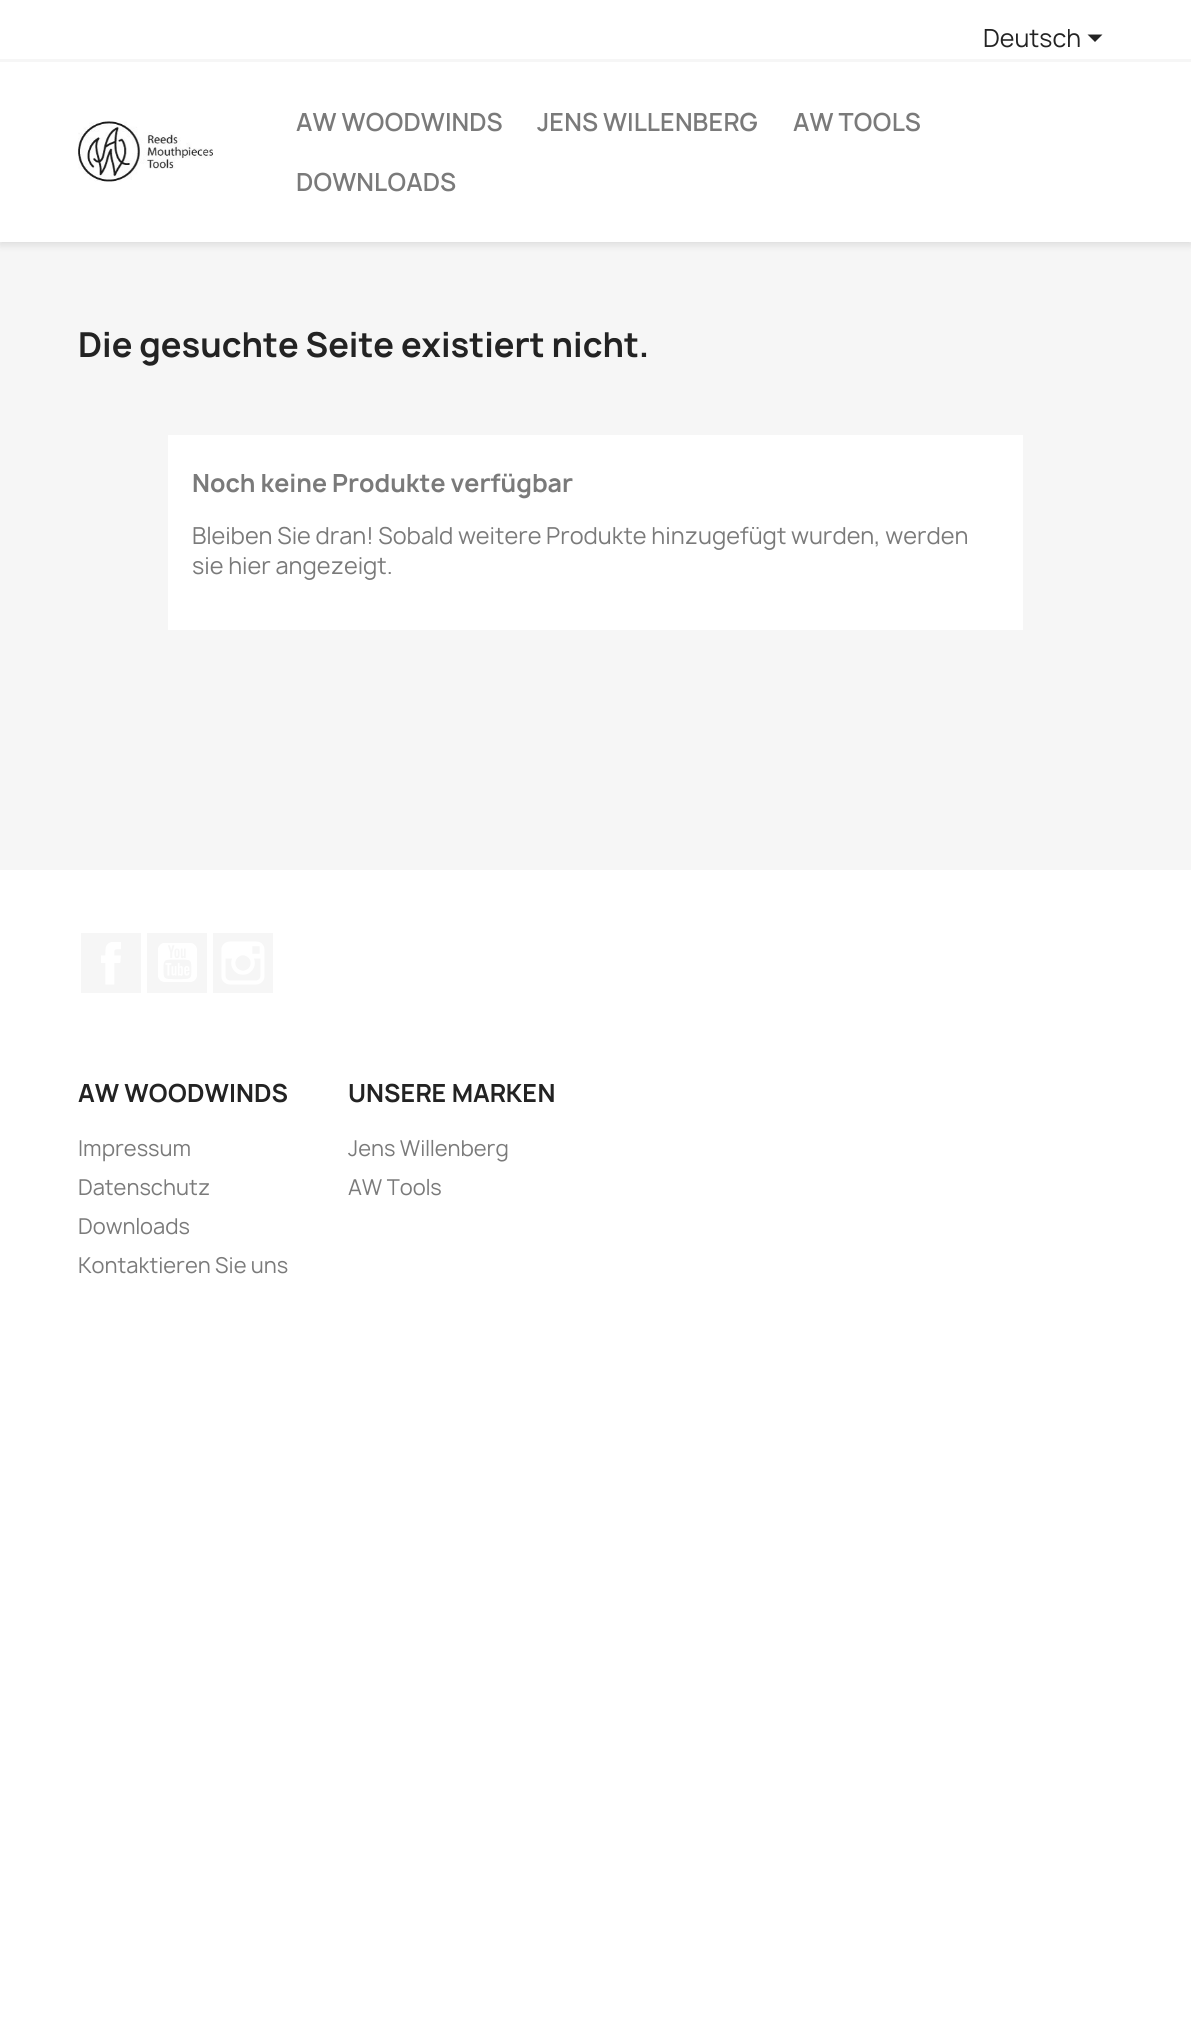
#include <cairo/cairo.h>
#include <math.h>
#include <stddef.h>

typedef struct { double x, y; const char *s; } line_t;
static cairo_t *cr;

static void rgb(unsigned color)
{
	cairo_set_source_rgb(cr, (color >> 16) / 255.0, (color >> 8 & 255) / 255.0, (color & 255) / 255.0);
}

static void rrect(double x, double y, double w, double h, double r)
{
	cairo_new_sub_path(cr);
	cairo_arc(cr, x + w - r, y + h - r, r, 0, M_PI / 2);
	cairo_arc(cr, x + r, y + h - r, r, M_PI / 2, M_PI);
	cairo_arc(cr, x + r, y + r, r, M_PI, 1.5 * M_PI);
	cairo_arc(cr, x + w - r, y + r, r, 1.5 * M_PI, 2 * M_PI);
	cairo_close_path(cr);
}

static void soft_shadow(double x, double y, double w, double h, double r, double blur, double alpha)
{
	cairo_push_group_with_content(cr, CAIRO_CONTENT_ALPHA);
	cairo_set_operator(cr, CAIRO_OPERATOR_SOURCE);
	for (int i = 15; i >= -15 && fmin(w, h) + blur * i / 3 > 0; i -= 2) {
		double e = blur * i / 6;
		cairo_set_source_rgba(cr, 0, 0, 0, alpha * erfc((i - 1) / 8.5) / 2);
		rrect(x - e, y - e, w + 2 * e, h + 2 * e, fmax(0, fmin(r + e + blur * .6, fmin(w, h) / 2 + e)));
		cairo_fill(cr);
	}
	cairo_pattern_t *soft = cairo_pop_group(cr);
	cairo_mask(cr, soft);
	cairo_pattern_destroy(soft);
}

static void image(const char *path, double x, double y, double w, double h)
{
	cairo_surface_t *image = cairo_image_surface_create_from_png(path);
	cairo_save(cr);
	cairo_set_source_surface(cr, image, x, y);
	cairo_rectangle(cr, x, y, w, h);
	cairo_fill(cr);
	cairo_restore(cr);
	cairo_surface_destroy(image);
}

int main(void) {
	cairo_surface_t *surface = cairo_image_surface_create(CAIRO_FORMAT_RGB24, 1191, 2036);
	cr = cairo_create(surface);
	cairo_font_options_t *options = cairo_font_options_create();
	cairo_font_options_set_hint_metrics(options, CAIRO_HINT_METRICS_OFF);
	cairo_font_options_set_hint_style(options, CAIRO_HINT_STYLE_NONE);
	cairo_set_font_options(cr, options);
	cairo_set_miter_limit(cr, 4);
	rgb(0xffffff);
	cairo_paint(cr);
	rgb(0xf6f6f6);
	cairo_rectangle(cr, 0, 242, 1191, 628);
	cairo_fill(cr);
	rgb(0x000000);
	soft_shadow(0, 3, 1191, 242, 0, 4, 0.11);
	rgb(0xffffff);
	cairo_rectangle(cr, 0, 0, 1191, 242);
	cairo_fill(cr);
	rgb(0xf6f6f6);
	cairo_rectangle(cr, 0, 59, 1191, 3);
	cairo_fill(cr);
	rgb(0x232323);
	cairo_new_path(cr);
	cairo_move_to(cr, 1087.5, 34.5);
	cairo_line_to(cr, 1102.5, 34.5);
	cairo_line_to(cr, 1095, 42);
	cairo_close_path(cr);
	cairo_fill(cr);
	image("img/1.png", 78, 121, 135, 61);
	rgb(0xffffff);
	cairo_rectangle(cr, 168, 435, 855, 195);
	cairo_fill(cr);
	rgb(0xf6f6f6);
	cairo_rectangle(cr, 81, 933, 60, 60);
	cairo_fill(cr);
	image("img/2.png", 101, 942, 20, 43);
	cairo_rectangle(cr, 147, 933, 60, 60);
	cairo_fill(cr);
	image("img/3.png", 158, 943, 39, 39);
	cairo_rectangle(cr, 213, 933, 60, 60);
	cairo_fill(cr);
	image("img/4.png", 221, 941, 44, 44);
	cairo_select_font_face(cr, "Manrope", CAIRO_FONT_SLANT_NORMAL, CAIRO_FONT_WEIGHT_NORMAL);
	cairo_set_font_size(cr, 24);
	rgb(0x232323);
	cairo_move_to(cr, 983, 47);
	cairo_show_text(cr, "Deutsch");
	cairo_select_font_face(cr, "Manrope SemiBold", CAIRO_FONT_SLANT_NORMAL, CAIRO_FONT_WEIGHT_NORMAL);
	rgb(0x7a7a7a);
	{
		static const line_t items[] = {
			{296, 131, "AW WOODWINDS"},
			{537, 131, "JENS WILLENBERG"},
			{793, 131, "AW TOOLS"},
			{296, 191, "DOWNLOADS"},
		};
		for (size_t i = 0; i < sizeof items / sizeof *items; i++) {
			cairo_move_to(cr, items[i].x, items[i].y);
			cairo_show_text(cr, items[i].s);
		}
	}
	cairo_select_font_face(cr, "Manrope", CAIRO_FONT_SLANT_NORMAL, CAIRO_FONT_WEIGHT_BOLD);
	cairo_set_font_size(cr, 33);
	rgb(0x232323);
	cairo_move_to(cr, 78, 357);
	cairo_show_text(cr, "Die gesuchte Seite existiert nicht.");
	cairo_set_font_size(cr, 24);
	rgb(0x7a7a7a);
	cairo_move_to(cr, 192, 492);
	cairo_show_text(cr, "Noch keine Produkte verfügbar");
	cairo_select_font_face(cr, "Manrope", CAIRO_FONT_SLANT_NORMAL, CAIRO_FONT_WEIGHT_NORMAL);
	cairo_set_font_size(cr, 22.5);
	cairo_move_to(cr, 192, 544);
	cairo_show_text(cr, "Bleiben Sie dran! Sobald weitere Produkte hinzugefügt wurden, werden");
	cairo_move_to(cr, 192, 574);
	cairo_show_text(cr, "sie hier angezeigt.");
	cairo_select_font_face(cr, "Manrope", CAIRO_FONT_SLANT_NORMAL, CAIRO_FONT_WEIGHT_BOLD);
	cairo_set_font_size(cr, 24);
	rgb(0x232323);
	cairo_move_to(cr, 78, 1102);
	cairo_show_text(cr, "AW WOODWINDS");
	cairo_select_font_face(cr, "Manrope", CAIRO_FONT_SLANT_NORMAL, CAIRO_FONT_WEIGHT_NORMAL);
	cairo_set_font_size(cr, 21);
	rgb(0x7a7a7a);
	{
		static const line_t items[] = {
			{78, 1156, "Impressum"},
			{78, 1195, "Datenschutz"},
			{78, 1234, "Downloads"},
			{78, 1273, "Kontaktieren Sie uns"},
		};
		for (size_t i = 0; i < sizeof items / sizeof *items; i++) {
			cairo_move_to(cr, items[i].x, items[i].y);
			cairo_show_text(cr, items[i].s);
		}
	}
	cairo_select_font_face(cr, "Manrope", CAIRO_FONT_SLANT_NORMAL, CAIRO_FONT_WEIGHT_BOLD);
	cairo_set_font_size(cr, 24);
	rgb(0x232323);
	cairo_move_to(cr, 348, 1102);
	cairo_show_text(cr, "UNSERE MARKEN");
	cairo_select_font_face(cr, "Manrope", CAIRO_FONT_SLANT_NORMAL, CAIRO_FONT_WEIGHT_NORMAL);
	cairo_set_font_size(cr, 21);
	rgb(0x7a7a7a);
	cairo_move_to(cr, 348, 1156);
	cairo_show_text(cr, "Jens Willenberg");
	cairo_move_to(cr, 348, 1195);
	cairo_show_text(cr, "AW Tools");
	cairo_surface_write_to_png(surface, "page.png");
	cairo_font_options_destroy(options);
	cairo_destroy(cr);
	cairo_surface_destroy(surface);
	return 0;
}
